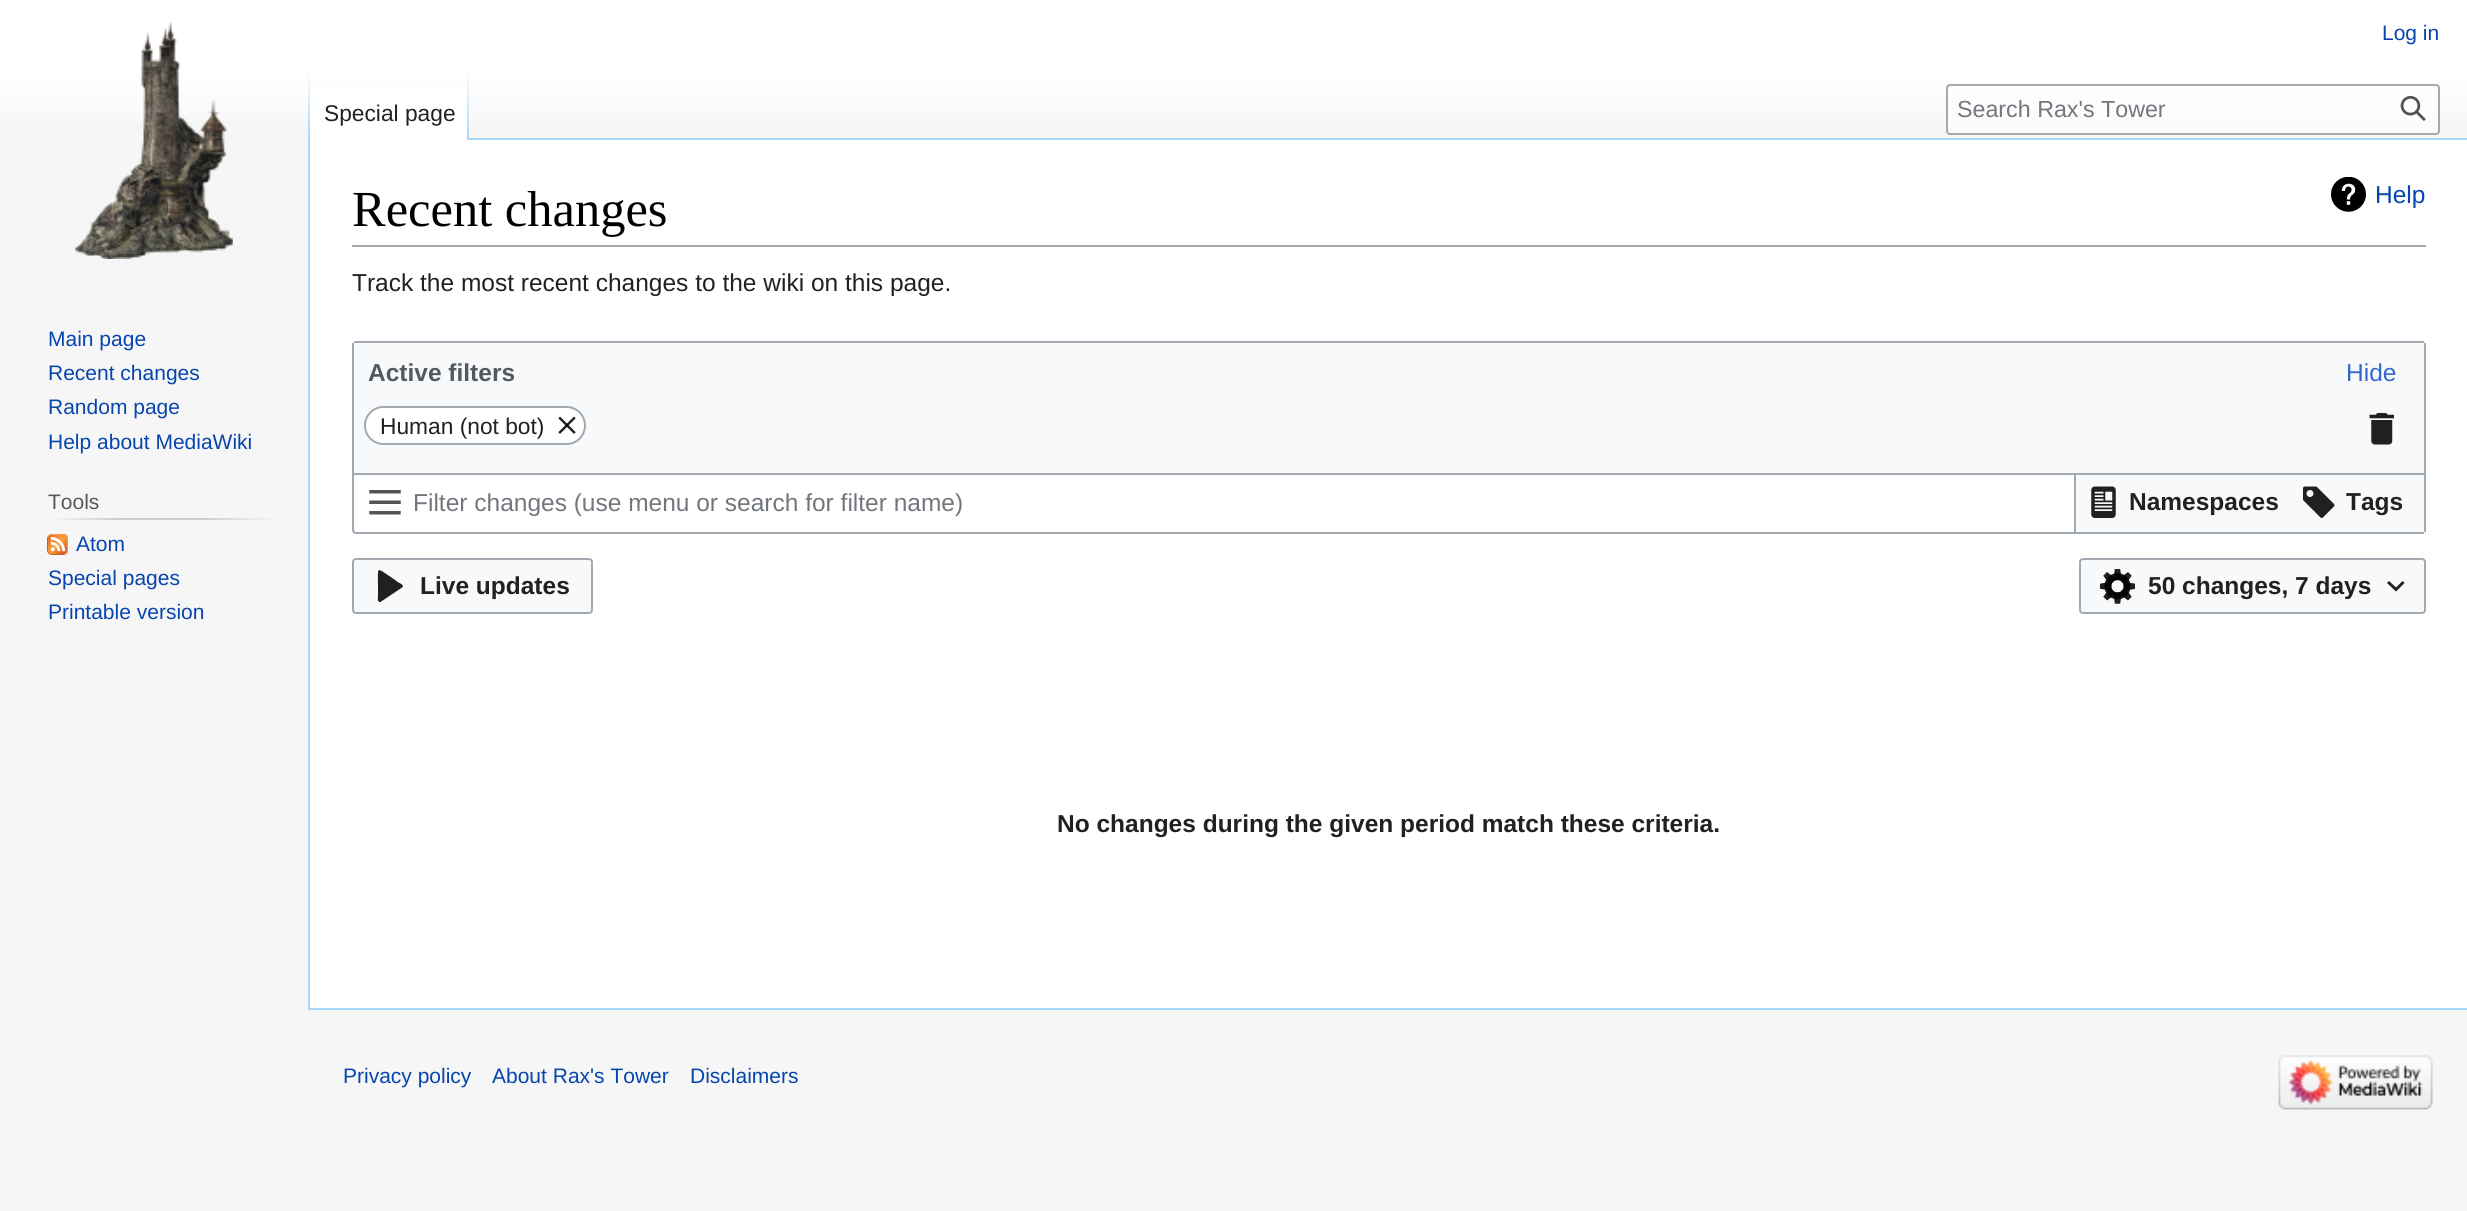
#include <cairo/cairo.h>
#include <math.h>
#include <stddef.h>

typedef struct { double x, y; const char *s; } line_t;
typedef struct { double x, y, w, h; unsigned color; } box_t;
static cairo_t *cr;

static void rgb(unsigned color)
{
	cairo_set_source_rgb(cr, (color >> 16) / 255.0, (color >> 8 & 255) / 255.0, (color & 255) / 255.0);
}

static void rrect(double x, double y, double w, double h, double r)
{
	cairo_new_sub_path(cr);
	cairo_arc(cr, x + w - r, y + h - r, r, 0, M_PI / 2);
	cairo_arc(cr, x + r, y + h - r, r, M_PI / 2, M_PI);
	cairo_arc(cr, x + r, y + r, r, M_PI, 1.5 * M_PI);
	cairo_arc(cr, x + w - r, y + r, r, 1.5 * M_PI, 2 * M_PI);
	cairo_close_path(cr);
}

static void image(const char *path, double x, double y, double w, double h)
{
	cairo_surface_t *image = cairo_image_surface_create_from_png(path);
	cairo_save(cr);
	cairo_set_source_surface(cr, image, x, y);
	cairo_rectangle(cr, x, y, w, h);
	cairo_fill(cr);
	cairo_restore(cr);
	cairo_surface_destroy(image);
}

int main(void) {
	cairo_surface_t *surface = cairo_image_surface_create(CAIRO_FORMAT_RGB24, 2467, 1211);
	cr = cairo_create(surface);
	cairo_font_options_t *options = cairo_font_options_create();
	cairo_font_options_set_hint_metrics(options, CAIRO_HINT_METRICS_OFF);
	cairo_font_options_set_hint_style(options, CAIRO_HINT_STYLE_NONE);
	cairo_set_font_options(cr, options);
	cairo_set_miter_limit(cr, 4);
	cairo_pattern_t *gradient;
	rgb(0xf6f6f6);
	cairo_paint(cr);
	gradient = cairo_pattern_create_linear(1234, 0, 1234, 140);
	cairo_pattern_add_color_stop_rgba(gradient, 0.5, 1, 1, 1, 1);
	cairo_pattern_add_color_stop_rgba(gradient, 1, 0.965, 0.965, 0.965, 1);
	cairo_set_source(cr, gradient);
	cairo_pattern_destroy(gradient);
	cairo_rectangle(cr, 0, 0, 2467, 121);
	cairo_fill(cr);
	rgb(0xa7d7f9);
	cairo_rectangle(cr, 308, 1008, 2159, 2);
	cairo_fill(cr);
	cairo_rectangle(cr, 308, 138, 2, 872);
	cairo_fill(cr);
	gradient = cairo_pattern_create_linear(309, 70, 309, 140);
	cairo_pattern_add_color_stop_rgba(gradient, 0, 0.655, 0.843, 0.976, 0);
	cairo_pattern_add_color_stop_rgba(gradient, 1, 0.655, 0.843, 0.976, 1);
	cairo_set_source(cr, gradient);
	cairo_pattern_destroy(gradient);
	cairo_rectangle(cr, 308, 70, 2, 70);
	cairo_fill(cr);
	rgb(0xffffff);
	cairo_rectangle(cr, 310, 89, 157, 51);
	cairo_fill(cr);
	gradient = cairo_pattern_create_linear(468, 70, 468, 140);
	cairo_pattern_add_color_stop_rgba(gradient, 0, 1, 1, 1, 1);
	cairo_pattern_add_color_stop_rgba(gradient, 1, 0.655, 0.843, 0.976, 1);
	cairo_set_source(cr, gradient);
	cairo_pattern_destroy(gradient);
	cairo_rectangle(cr, 467, 70, 2, 70);
	cairo_fill(cr);
	cairo_set_source_rgba(cr, 1, 1, 1, 0.5);
	rrect(1947, 85, 492, 49, 3);
	cairo_fill_preserve(cr);
	rgb(0xa2a9b1);
	cairo_stroke(cr);
	image("img/1.png", 2400, 95, 26, 26);
	image("img/2.png", 75, 22, 158, 237);
	gradient = cairo_pattern_create_linear(47, 519, 277, 519);
	cairo_pattern_add_color_stop_rgba(gradient, 0, 0.965, 0.965, 0.965, 1);
	cairo_pattern_add_color_stop_rgba(gradient, 0.33, 0.784, 0.8, 0.82, 1);
	cairo_pattern_add_color_stop_rgba(gradient, 0.66, 0.784, 0.8, 0.82, 1);
	cairo_pattern_add_color_stop_rgba(gradient, 1, 0.965, 0.965, 0.965, 1);
	cairo_set_source(cr, gradient);
	cairo_pattern_destroy(gradient);
	cairo_rectangle(cr, 47, 518, 230, 2);
	cairo_fill(cr);
	image("img/3.png", 47, 534, 21, 21);
	{
		static const box_t items[] = {
			{310, 140, 2157, 868, 0xffffff},
			{469, 138, 1998, 2, 0xa7d7f9},
			{352, 245, 2074, 2, 0xa2a9b1},
		};
		for (size_t i = 0; i < sizeof items / sizeof *items; i++) {
			rgb(items[i].color);
			cairo_rectangle(cr, items[i].x, items[i].y, items[i].w, items[i].h);
			cairo_fill(cr);
		}
	}
	image("img/4.png", 2331, 177, 35, 35);
	{
		static const box_t items[] = {
			{352, 341, 2074, 193, 0xf8f9fa},
			{354, 341, 2070, 2, 0xa2a9b1},
			{2424, 343, 2, 130, 0xa2a9b1},
			{352, 343, 2, 130, 0xa2a9b1},
		};
		for (size_t i = 0; i < sizeof items / sizeof *items; i++) {
			rgb(items[i].color);
			cairo_rectangle(cr, items[i].x, items[i].y, items[i].w, items[i].h);
			cairo_fill(cr);
		}
	}
	rgb(0xffffff);
	rrect(365, 407, 220, 37, 18.5);
	cairo_fill_preserve(cr);
	rgb(0xa2a9b1);
	cairo_stroke(cr);
	image("img/5.png", 558, 416, 18, 18);
	image("img/6.png", 2369, 413, 25, 32);
	rgb(0xffffff);
	cairo_new_path(cr);
	cairo_move_to(cr, 353, 474);
	cairo_line_to(cr, 2075, 474);
	cairo_line_to(cr, 2075, 533);
	cairo_line_to(cr, 356, 533);
	cairo_curve_to(cr, 354.5, 533, 353, 531.5, 353, 530);
	cairo_close_path(cr);
	cairo_fill_preserve(cr);
	rgb(0xa2a9b1);
	cairo_stroke(cr);
	image("img/7.png", 369, 490, 32, 25);
	{
		static const box_t items[] = {
			{2076, 473, 350, 2, 0xa2a9b1},
			{2424, 473, 2, 59, 0xa2a9b1},
			{2076, 532, 348, 2, 0xa2a9b1},
		};
		for (size_t i = 0; i < sizeof items / sizeof *items; i++) {
			rgb(items[i].color);
			cairo_rectangle(cr, items[i].x, items[i].y, items[i].w, items[i].h);
			cairo_fill(cr);
		}
	}
	image("img/8.png", 2091, 486, 25, 32);
	image("img/9.png", 2303, 486, 32, 32);
	rgb(0xf8f9fa);
	rrect(353, 559, 239, 54, 3);
	cairo_fill_preserve(cr);
	rgb(0xa2a9b1);
	cairo_stroke(cr);
	rgb(0x202021);
	cairo_new_path(cr);
	cairo_move_to(cr, 380.5, 602);
	cairo_line_to(cr, 379.5, 602);
	cairo_curve_to(cr, 377, 601.5, 378, 596.5, 378, 595.5);
	cairo_line_to(cr, 378, 586);
	cairo_curve_to(cr, 378, 566, 375.5, 567, 391.5, 577.5);
	cairo_line_to(cr, 398.5, 582.5);
	cairo_curve_to(cr, 399, 582.5, 405, 585.5, 402, 587.5);
	cairo_close_path(cr);
	cairo_fill(cr);
	rgb(0xf8f9fa);
	rrect(2080, 559, 345, 54, 3);
	cairo_fill_preserve(cr);
	rgb(0xa2a9b1);
	cairo_stroke(cr);
	image("img/10.png", 2100, 569, 35, 35);
	rgb(0x202021);
	cairo_new_path(cr);
	cairo_move_to(cr, 2402.5, 581);
	cairo_line_to(cr, 2396, 587.5);
	cairo_line_to(cr, 2389, 581);
	cairo_line_to(cr, 2387, 583);
	cairo_line_to(cr, 2396, 591.5);
	cairo_line_to(cr, 2404.5, 583);
	cairo_close_path(cr);
	cairo_fill(cr);
	image("img/11.png", 2278, 1055, 155, 55);
	cairo_select_font_face(cr, "Liberation Sans", CAIRO_FONT_SLANT_NORMAL, CAIRO_FONT_WEIGHT_NORMAL);
	cairo_set_font_size(cr, 21);
	rgb(0x0645ad);
	cairo_move_to(cr, 2382, 40);
	cairo_show_text(cr, "Log in");
	cairo_set_font_size(cr, 22.75);
	rgb(0x202122);
	cairo_move_to(cr, 324, 121);
	cairo_show_text(cr, "Special page");
	cairo_set_font_size(cr, 23.25);
	rgb(0x72777d);
	cairo_move_to(cr, 1957, 117);
	cairo_show_text(cr, "Search Rax's Tower");
	cairo_set_font_size(cr, 21);
	rgb(0x0645ad);
	{
		static const line_t items[] = {
			{48, 346, "Main page"},
			{48, 380, "Recent changes"},
			{48, 414, "Random page"},
			{48, 449, "Help about MediaWiki"},
		};
		for (size_t i = 0; i < sizeof items / sizeof *items; i++) {
			cairo_move_to(cr, items[i].x, items[i].y);
			cairo_show_text(cr, items[i].s);
		}
	}
	rgb(0x54595d);
	cairo_move_to(cr, 48, 509);
	cairo_show_text(cr, "Tools");
	rgb(0x0645ad);
	{
		static const line_t items[] = {
			{76, 551, "Atom"},
			{48, 585, "Special pages"},
			{48, 619, "Printable version"},
		};
		for (size_t i = 0; i < sizeof items / sizeof *items; i++) {
			cairo_move_to(cr, items[i].x, items[i].y);
			cairo_show_text(cr, items[i].s);
		}
	}
	cairo_select_font_face(cr, "Liberation Serif", CAIRO_FONT_SLANT_NORMAL, CAIRO_FONT_WEIGHT_NORMAL);
	cairo_set_font_size(cr, 50.5);
	rgb(0x000000);
	cairo_move_to(cr, 352, 226);
	cairo_show_text(cr, "Recent changes");
	cairo_select_font_face(cr, "Liberation Sans", CAIRO_FONT_SLANT_NORMAL, CAIRO_FONT_WEIGHT_NORMAL);
	cairo_set_font_size(cr, 24.5);
	rgb(0x0645ad);
	cairo_move_to(cr, 2375, 203);
	cairo_show_text(cr, "Help");
	rgb(0x202122);
	cairo_move_to(cr, 352, 291);
	cairo_show_text(cr, "Track the most recent changes to the wiki on this page.");
	cairo_select_font_face(cr, "Liberation Sans", CAIRO_FONT_SLANT_NORMAL, CAIRO_FONT_WEIGHT_BOLD);
	rgb(0x54595d);
	cairo_move_to(cr, 368, 381);
	cairo_show_text(cr, "Active filters");
	cairo_select_font_face(cr, "Liberation Sans", CAIRO_FONT_SLANT_NORMAL, CAIRO_FONT_WEIGHT_NORMAL);
	rgb(0x3366cc);
	cairo_move_to(cr, 2346, 381);
	cairo_show_text(cr, "Hide");
	cairo_set_font_size(cr, 22.75);
	rgb(0x202122);
	cairo_move_to(cr, 380, 434);
	cairo_show_text(cr, "Human (not bot)");
	cairo_set_font_size(cr, 24.5);
	rgb(0x72777d);
	cairo_move_to(cr, 413, 511);
	cairo_show_text(cr, "Filter changes (use menu or search for filter name)");
	cairo_select_font_face(cr, "Liberation Sans", CAIRO_FONT_SLANT_NORMAL, CAIRO_FONT_WEIGHT_BOLD);
	rgb(0x202122);
	{
		static const line_t items[] = {
			{2129, 510, "Namespaces"},
			{2346, 510, "Tags"},
			{420, 594, "Live updates"},
			{2148, 594, "50 changes, 7 days"},
			{1057, 832, "No changes during the given period match these criteria."},
		};
		for (size_t i = 0; i < sizeof items / sizeof *items; i++) {
			cairo_move_to(cr, items[i].x, items[i].y);
			cairo_show_text(cr, items[i].s);
		}
	}
	cairo_select_font_face(cr, "Liberation Sans", CAIRO_FONT_SLANT_NORMAL, CAIRO_FONT_WEIGHT_NORMAL);
	cairo_set_font_size(cr, 21);
	rgb(0x0645ad);
	{
		static const line_t items[] = {
			{343, 1083, "Privacy policy"},
			{492, 1083, "About Rax's Tower"},
			{690, 1083, "Disclaimers"},
		};
		for (size_t i = 0; i < sizeof items / sizeof *items; i++) {
			cairo_move_to(cr, items[i].x, items[i].y);
			cairo_show_text(cr, items[i].s);
		}
	}
	cairo_surface_write_to_png(surface, "page.png");
	cairo_font_options_destroy(options);
	cairo_destroy(cr);
	cairo_surface_destroy(surface);
	return 0;
}
